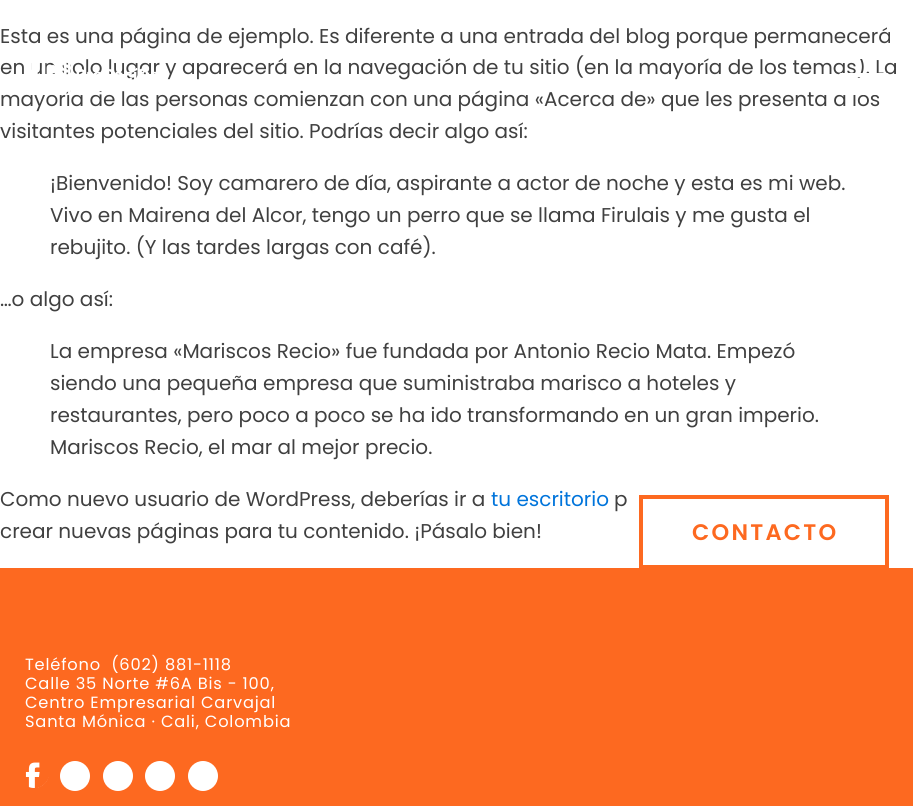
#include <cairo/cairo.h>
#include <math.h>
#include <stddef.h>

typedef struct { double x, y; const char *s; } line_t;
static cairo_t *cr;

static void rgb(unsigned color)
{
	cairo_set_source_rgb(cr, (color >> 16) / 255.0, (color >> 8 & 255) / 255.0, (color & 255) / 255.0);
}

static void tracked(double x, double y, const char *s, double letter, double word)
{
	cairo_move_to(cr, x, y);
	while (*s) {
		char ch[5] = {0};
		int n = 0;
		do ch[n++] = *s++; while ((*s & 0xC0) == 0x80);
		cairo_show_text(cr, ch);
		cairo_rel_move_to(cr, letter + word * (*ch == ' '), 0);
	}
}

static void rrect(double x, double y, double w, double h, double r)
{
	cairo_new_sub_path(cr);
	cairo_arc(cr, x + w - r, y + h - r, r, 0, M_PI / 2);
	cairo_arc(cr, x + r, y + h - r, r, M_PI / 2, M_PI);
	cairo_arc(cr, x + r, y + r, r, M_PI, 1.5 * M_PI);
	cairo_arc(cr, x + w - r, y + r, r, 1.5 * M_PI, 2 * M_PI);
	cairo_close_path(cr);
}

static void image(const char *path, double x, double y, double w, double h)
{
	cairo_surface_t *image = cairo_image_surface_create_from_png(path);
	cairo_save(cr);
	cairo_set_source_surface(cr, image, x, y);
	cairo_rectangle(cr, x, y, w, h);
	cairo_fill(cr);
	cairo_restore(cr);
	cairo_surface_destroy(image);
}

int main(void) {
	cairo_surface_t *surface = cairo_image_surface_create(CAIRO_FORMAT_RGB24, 913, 806);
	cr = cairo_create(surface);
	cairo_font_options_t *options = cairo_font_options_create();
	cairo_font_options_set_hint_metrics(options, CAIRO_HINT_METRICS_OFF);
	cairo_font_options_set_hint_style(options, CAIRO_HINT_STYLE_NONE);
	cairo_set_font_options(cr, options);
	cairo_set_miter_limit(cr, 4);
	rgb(0xffffff);
	cairo_paint(cr);
	rgb(0xfd6920);
	cairo_rectangle(cr, 0, 568, 913, 238);
	cairo_fill(cr);
	cairo_rectangle(cr, 641, 497, 246, 70);
	cairo_set_line_width(cr, 4);
	cairo_stroke(cr);
	rgb(0xffffff);
	cairo_arc(cr, 34, 773, 15, 0, 2 * M_PI);
	cairo_fill(cr);
	cairo_arc(cr, 75, 776, 15, 0, 2 * M_PI);
	cairo_fill(cr);
	cairo_arc(cr, 118, 776, 15, 0, 2 * M_PI);
	cairo_fill(cr);
	cairo_arc(cr, 160, 776, 15, 0, 2 * M_PI);
	cairo_fill(cr);
	cairo_arc(cr, 203, 776, 15, 0, 2 * M_PI);
	cairo_fill(cr);
	cairo_select_font_face(cr, "Poppins", CAIRO_FONT_SLANT_NORMAL, CAIRO_FONT_WEIGHT_NORMAL);
	cairo_set_font_size(cr, 20);
	rgb(0x404040);
	{
		static const line_t items[] = {
			{0, 43, "Esta es una página de ejemplo. Es diferente a una entrada del blog porque permanecerá"},
			{0, 74, "en un solo lugar y aparecerá en la navegación de tu sitio (en la mayoría de los temas). La"},
			{0, 106, "mayoría de las personas comienzan con una página «Acerca de» que les presenta a los"},
			{0, 138, "visitantes potenciales del sitio. Podrías decir algo así:"},
			{50, 190, "¡Bienvenido! Soy camarero de día, aspirante a actor de noche y esta es mi web."},
			{50, 222, "Vivo en Mairena del Alcor, tengo un perro que se llama Firulais y me gusta el"},
			{50, 254, "rebujito. (Y las tardes largas con café)."},
			{0, 306, "…o algo así:"},
			{50, 358, "La empresa «Mariscos Recio» fue fundada por Antonio Recio Mata. Empezó"},
			{50, 390, "siendo una pequeña empresa que suministraba marisco a hoteles y"},
			{50, 422, "restaurantes, pero poco a poco se ha ido transformando en un gran imperio."},
			{50, 454, "Mariscos Recio, el mar al mejor precio."},
			{0, 506, "Como nuevo usuario de WordPress, deberías ir a"},
		};
		for (size_t i = 0; i < sizeof items / sizeof *items; i++) {
			cairo_move_to(cr, items[i].x, items[i].y);
			cairo_show_text(cr, items[i].s);
		}
	}
	rgb(0x0074db);
	cairo_move_to(cr, 491, 506);
	cairo_show_text(cr, "tu escritorio");
	rgb(0x404040);
	cairo_move_to(cr, 614, 506);
	cairo_show_text(cr, "p");
	cairo_move_to(cr, 0, 538);
	cairo_show_text(cr, "crear nuevas páginas para tu contenido. ¡Pásalo bien!");
	image("img/1.png", 32, 62, 137, 33);
	rgb(0xffffff);
	rrect(839, 55, 50, 4, 2);
	cairo_fill(cr);
	rrect(839, 73, 50, 4, 2);
	cairo_fill(cr);
	rrect(839, 91, 50, 4, 2);
	cairo_fill(cr);
	cairo_select_font_face(cr, "Poppins SemiBold", CAIRO_FONT_SLANT_NORMAL, CAIRO_FONT_WEIGHT_NORMAL);
	cairo_set_font_size(cr, 22.5);
	rgb(0xfd6920);
	tracked(692, 540, "CONTACTO", 2.25, 0);
	cairo_select_font_face(cr, "Poppins", CAIRO_FONT_SLANT_NORMAL, CAIRO_FONT_WEIGHT_NORMAL);
	cairo_set_font_size(cr, 16.25);
	rgb(0xffffff);
	{
		static const line_t items[] = {
			{25, 670, "Teléfono  (602) 881-1118"},
			{25, 689, "Calle 35 Norte #6A Bis - 100,"},
			{25, 708, "Centro Empresarial Carvajal"},
			{25, 727, "Santa Mónica · Cali, Colombia"},
		};
		for (size_t i = 0; i < sizeof items / sizeof *items; i++) {
			tracked(items[i].x, items[i].y, items[i].s, 0.8, 0);
		}
	}
	cairo_select_font_face(cr, "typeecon", CAIRO_FONT_SLANT_NORMAL, CAIRO_FONT_WEIGHT_NORMAL);
	cairo_set_font_size(cr, 34);
	rgb(0xfd6920);
	tracked(15, 783, "F", 2, 0);
	cairo_surface_write_to_png(surface, "page.png");
	cairo_font_options_destroy(options);
	cairo_destroy(cr);
	cairo_surface_destroy(surface);
	return 0;
}
